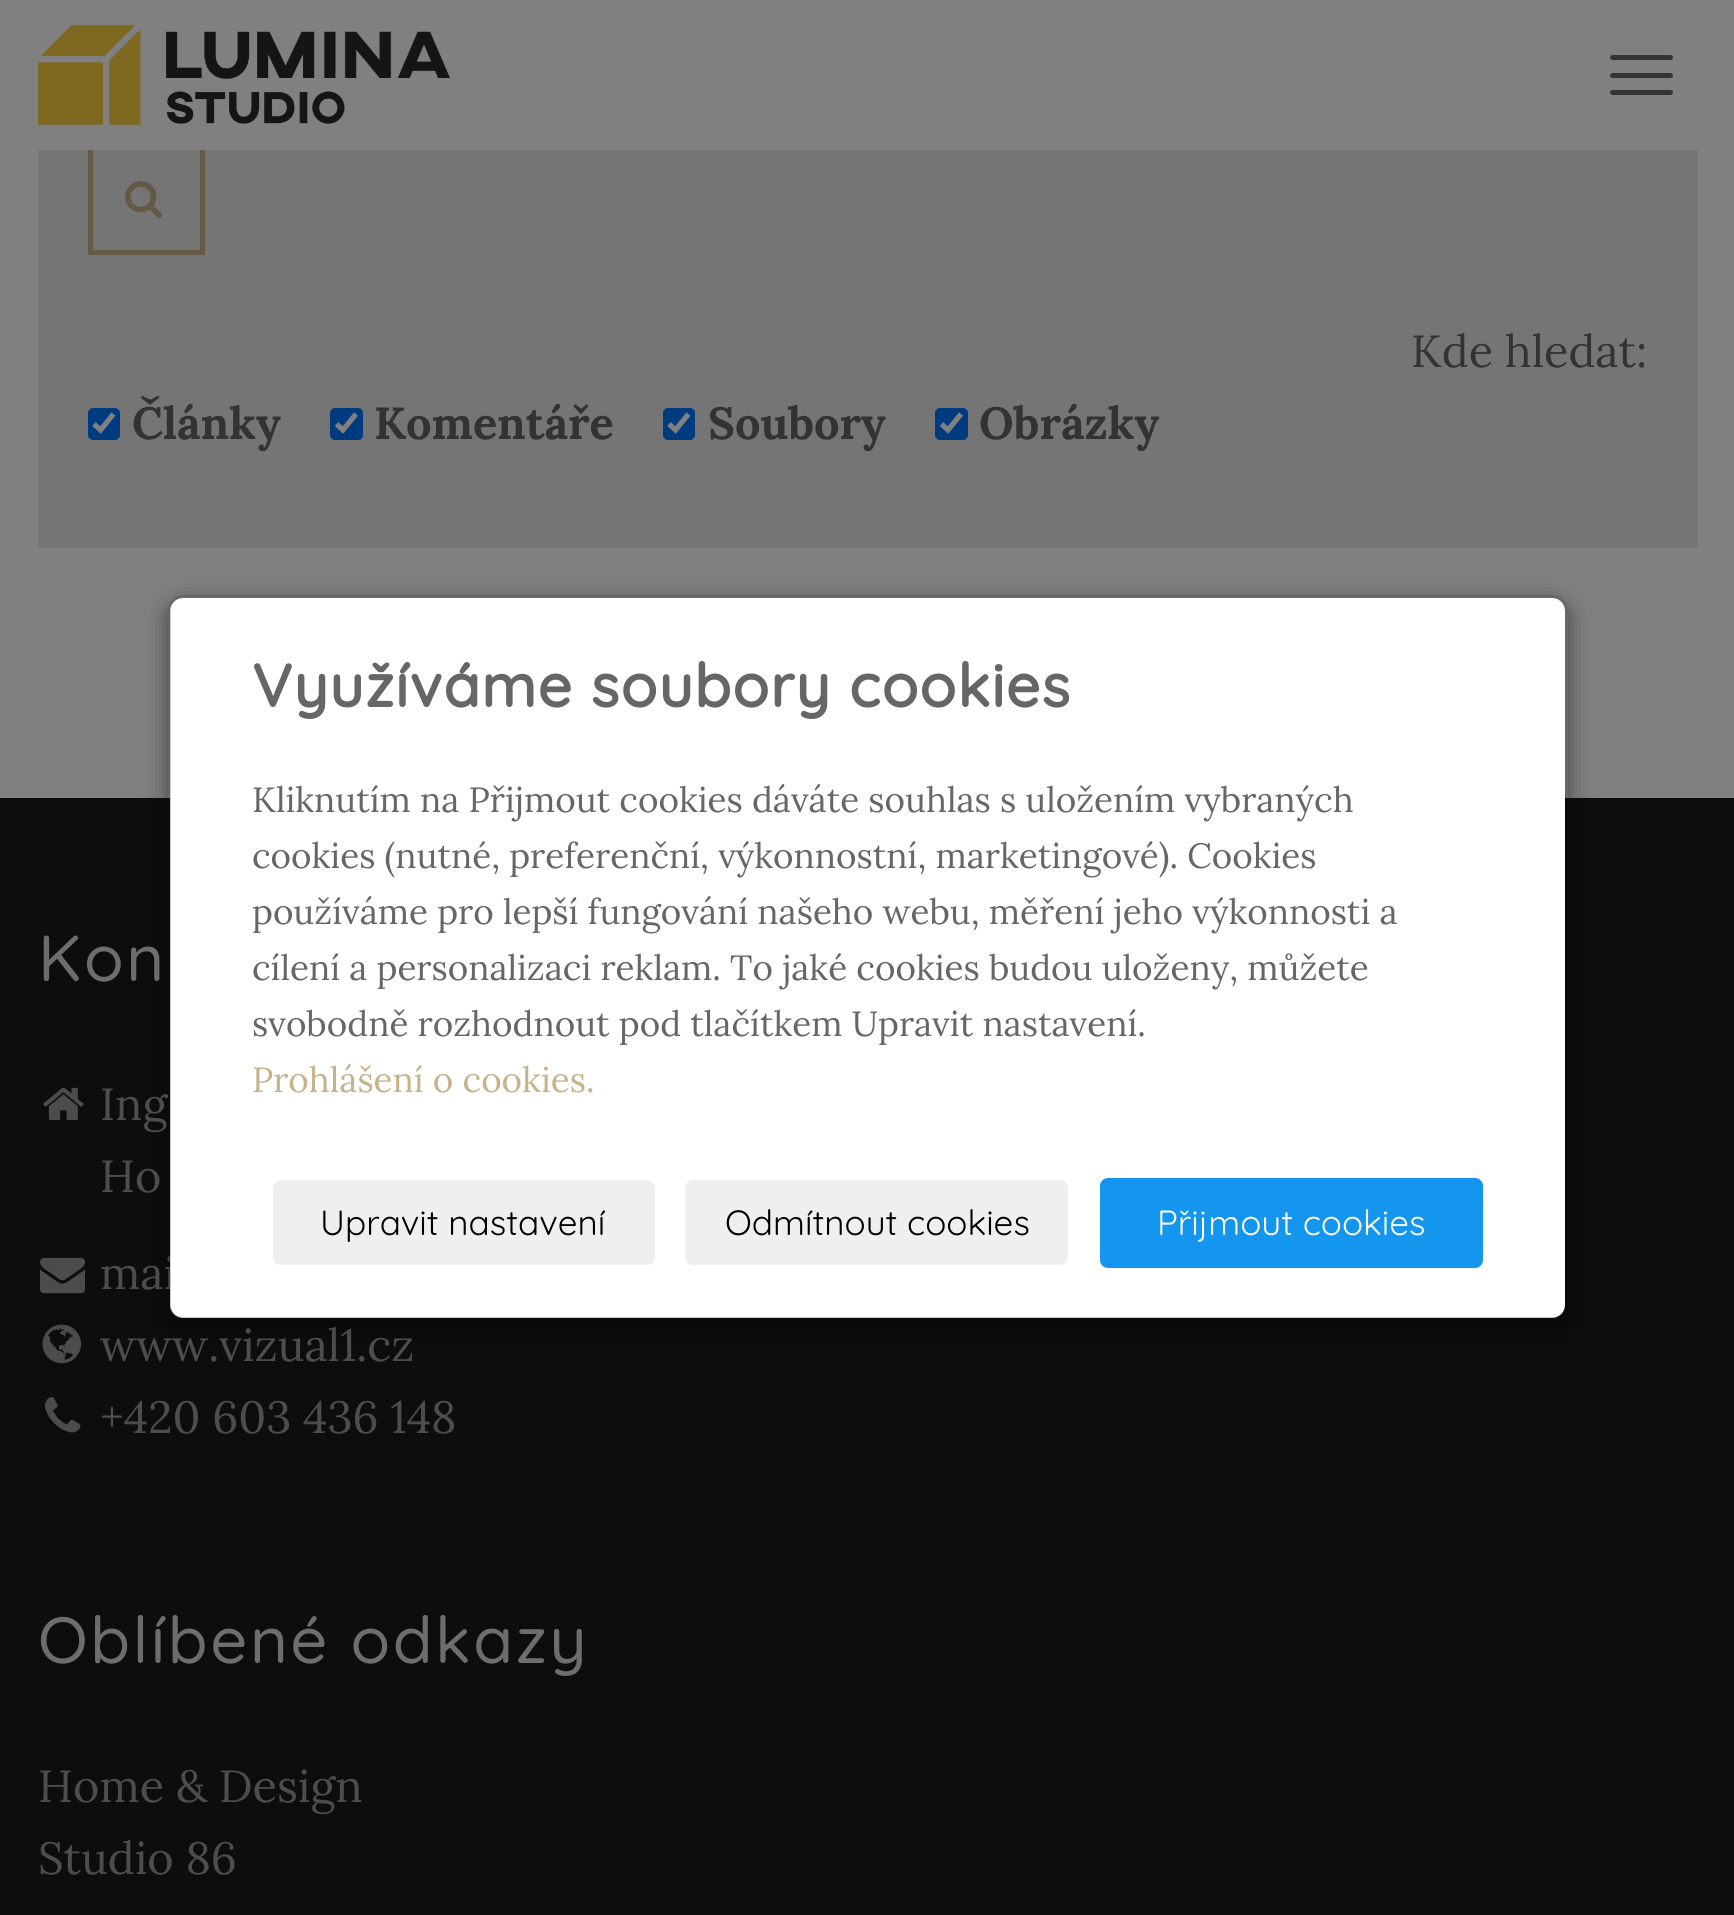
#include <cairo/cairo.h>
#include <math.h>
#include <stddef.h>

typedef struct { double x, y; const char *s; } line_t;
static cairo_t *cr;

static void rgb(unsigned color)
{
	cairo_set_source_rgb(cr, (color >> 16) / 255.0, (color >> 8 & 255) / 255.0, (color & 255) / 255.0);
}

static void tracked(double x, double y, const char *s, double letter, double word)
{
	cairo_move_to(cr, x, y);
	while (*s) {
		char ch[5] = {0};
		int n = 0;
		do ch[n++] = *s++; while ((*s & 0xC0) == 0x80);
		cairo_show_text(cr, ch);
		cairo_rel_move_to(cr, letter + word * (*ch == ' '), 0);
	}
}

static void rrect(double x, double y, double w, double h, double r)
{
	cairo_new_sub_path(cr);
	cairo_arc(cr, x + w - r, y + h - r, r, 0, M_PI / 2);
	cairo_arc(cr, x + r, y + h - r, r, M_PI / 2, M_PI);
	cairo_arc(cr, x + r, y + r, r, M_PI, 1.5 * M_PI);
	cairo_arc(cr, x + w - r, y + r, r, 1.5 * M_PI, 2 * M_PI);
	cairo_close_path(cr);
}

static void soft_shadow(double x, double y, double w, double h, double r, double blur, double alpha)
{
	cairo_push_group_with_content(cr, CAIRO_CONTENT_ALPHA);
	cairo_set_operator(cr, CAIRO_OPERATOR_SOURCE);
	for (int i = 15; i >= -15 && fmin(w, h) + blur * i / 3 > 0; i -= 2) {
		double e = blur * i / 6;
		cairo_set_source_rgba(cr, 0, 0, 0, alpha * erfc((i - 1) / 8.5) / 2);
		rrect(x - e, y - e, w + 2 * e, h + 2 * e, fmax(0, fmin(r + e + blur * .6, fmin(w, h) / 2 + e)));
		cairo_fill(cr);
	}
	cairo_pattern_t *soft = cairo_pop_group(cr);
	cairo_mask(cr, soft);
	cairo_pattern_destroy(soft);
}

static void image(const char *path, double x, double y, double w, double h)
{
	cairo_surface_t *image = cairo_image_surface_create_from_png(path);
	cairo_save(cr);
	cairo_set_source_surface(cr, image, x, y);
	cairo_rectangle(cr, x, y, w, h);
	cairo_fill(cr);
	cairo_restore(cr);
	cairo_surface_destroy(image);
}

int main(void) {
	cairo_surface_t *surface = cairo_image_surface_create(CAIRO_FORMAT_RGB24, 1734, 1915);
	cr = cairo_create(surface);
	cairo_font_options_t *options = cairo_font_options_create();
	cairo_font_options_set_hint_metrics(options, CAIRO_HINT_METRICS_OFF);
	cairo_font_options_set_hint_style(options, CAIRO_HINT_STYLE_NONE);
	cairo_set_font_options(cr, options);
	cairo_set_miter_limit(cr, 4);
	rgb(0x808080);
	cairo_paint(cr);
	rgb(0x757575);
	cairo_rectangle(cr, 38, 150, 1660, 398);
	cairo_fill(cr);
	cairo_rectangle(cr, 90.5, 145.5, 112, 107);
	rgb(0x645945);
	cairo_set_line_width(cr, 5);
	cairo_stroke(cr);
	rgb(0x808080);
	cairo_rectangle(cr, 88, 143, 117, 7);
	cairo_fill(cr);
	image("img/1.png", 38, 25, 412, 100);
	rgb(0x333333);
	rrect(1610, 55, 63, 5, 2.5);
	cairo_fill(cr);
	rrect(1610, 73, 63, 5, 2.5);
	cairo_fill(cr);
	rrect(1610, 90, 63, 5, 2.5);
	cairo_fill(cr);
	image("img/2.png", 125, 181, 38, 38);
	rgb(0x003b80);
	rrect(88, 408, 32, 32, 5);
	cairo_fill(cr);
	cairo_new_path(cr);
	cairo_move_to(cr, 94, 424);
	cairo_line_to(cr, 100.5, 430);
	cairo_line_to(cr, 113.5, 414);
	rgb(0x808080);
	cairo_set_line_width(cr, 5.2);
	cairo_stroke(cr);
	rgb(0x003b80);
	rrect(330, 408, 33, 32, 5);
	cairo_fill(cr);
	cairo_new_path(cr);
	cairo_move_to(cr, 336.5, 424);
	cairo_line_to(cr, 343, 430);
	cairo_line_to(cr, 356, 414);
	rgb(0x808080);
	cairo_stroke(cr);
	rgb(0x003b80);
	rrect(663, 408, 32, 32, 5);
	cairo_fill(cr);
	cairo_new_path(cr);
	cairo_move_to(cr, 669, 424);
	cairo_line_to(cr, 675.5, 430);
	cairo_line_to(cr, 688.5, 414);
	rgb(0x808080);
	cairo_stroke(cr);
	rgb(0x003b80);
	rrect(935, 408, 33, 32, 5);
	cairo_fill(cr);
	cairo_new_path(cr);
	cairo_move_to(cr, 941.5, 424);
	cairo_line_to(cr, 948, 430);
	cairo_line_to(cr, 961, 414);
	rgb(0x808080);
	cairo_stroke(cr);
	rgb(0x0d0d0d);
	cairo_rectangle(cr, 0, 798, 1734, 1117);
	cairo_fill(cr);
	cairo_save(cr);
	cairo_set_fill_rule(cr, CAIRO_FILL_RULE_EVEN_ODD);
	cairo_new_path(cr);
	cairo_move_to(cr, 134, 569);
	cairo_line_to(cr, 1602, 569);
	cairo_line_to(cr, 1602, 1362);
	cairo_line_to(cr, 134, 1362);
	cairo_close_path(cr);
	cairo_move_to(cr, 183, 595);
	cairo_line_to(cr, 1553, 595);
	cairo_curve_to(cr, 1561.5, 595, 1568, 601.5, 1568, 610);
	cairo_line_to(cr, 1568, 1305);
	cairo_curve_to(cr, 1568, 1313.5, 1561.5, 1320, 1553, 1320);
	cairo_line_to(cr, 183, 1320);
	cairo_curve_to(cr, 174.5, 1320, 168, 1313.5, 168, 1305);
	cairo_line_to(cr, 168, 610);
	cairo_curve_to(cr, 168, 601.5, 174.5, 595, 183, 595);
	cairo_close_path(cr);
	cairo_clip(cr);
	rgb(0x000000);
	soft_shadow(168, 603, 1400, 725, 15, 11, 0.5);
	cairo_restore(cr);
	image("img/3.png", 43, 1087, 41, 33);
	image("img/4.png", 40, 1257, 45, 37);
	image("img/5.png", 42, 1324, 40, 40);
	image("img/6.png", 45, 1397, 36, 36);
	cairo_select_font_face(cr, "Lora", CAIRO_FONT_SLANT_NORMAL, CAIRO_FONT_WEIGHT_NORMAL);
	cairo_set_font_size(cr, 45);
	rgb(0x333333);
	cairo_move_to(cr, 1411, 367);
	cairo_show_text(cr, "Kde hledat:");
	cairo_select_font_face(cr, "Lora", CAIRO_FONT_SLANT_NORMAL, CAIRO_FONT_WEIGHT_BOLD);
	{
		static const line_t items[] = {
			{132, 439, "Články"},
			{374, 439, "Komentáře"},
			{708, 439, "Soubory"},
			{979, 439, "Obrázky"},
		};
		for (size_t i = 0; i < sizeof items / sizeof *items; i++) {
			cairo_move_to(cr, items[i].x, items[i].y);
			cairo_show_text(cr, items[i].s);
		}
	}
	cairo_select_font_face(cr, "Quicksand Medium", CAIRO_FONT_SLANT_NORMAL, CAIRO_FONT_WEIGHT_NORMAL);
	cairo_set_font_size(cr, 65);
	rgb(0x6d6d6d);
	tracked(38, 981, "Kon", 2.5, 0);
	cairo_select_font_face(cr, "Lora", CAIRO_FONT_SLANT_NORMAL, CAIRO_FONT_WEIGHT_NORMAL);
	cairo_set_font_size(cr, 45);
	rgb(0x4d4d4d);
	{
		static const line_t items[] = {
			{100, 1120, "Ing"},
			{100, 1192, "Ho"},
			{100, 1289, "mai"},
		};
		for (size_t i = 0; i < sizeof items / sizeof *items; i++) {
			cairo_move_to(cr, items[i].x, items[i].y);
			cairo_show_text(cr, items[i].s);
		}
	}
	rgb(0xffffff);
	rrect(170, 598, 1395, 720, 13);
	cairo_fill(cr);
	rrect(169.5, 596.5, 1397, 722, 13.5);
	cairo_set_source_rgba(cr, 0, 0, 0, 0.2);
	cairo_set_line_width(cr, 3);
	cairo_stroke(cr);
	rgb(0x1496ee);
	rrect(1102.5, 1180.5, 378, 85, 5.5);
	cairo_fill_preserve(cr);
	cairo_set_line_width(cr, 5);
	cairo_stroke(cr);
	cairo_select_font_face(cr, "Quicksand", CAIRO_FONT_SLANT_NORMAL, CAIRO_FONT_WEIGHT_NORMAL);
	cairo_set_font_size(cr, 35);
	rgb(0xffffff);
	cairo_move_to(cr, 1157, 1235);
	cairo_show_text(cr, "Přijmout cookies");
	cairo_select_font_face(cr, "Lora", CAIRO_FONT_SLANT_NORMAL, CAIRO_FONT_WEIGHT_NORMAL);
	rgb(0xc7b28a);
	cairo_move_to(cr, 252, 1092);
	cairo_show_text(cr, "Prohlášení o cookies.");
	rgb(0x666666);
	{
		static const line_t items[] = {
			{252, 1036, "svobodně rozhodnout pod tlačítkem Upravit nastavení."},
			{252, 980, "cílení a personalizaci reklam. To jaké cookies budou uloženy, můžete"},
			{252, 924, "používáme pro lepší fungování našeho webu, měření jeho výkonnosti a"},
			{252, 868, "cookies (nutné, preferenční, výkonnostní, marketingové). Cookies"},
			{252, 812, "Kliknutím na Přijmout cookies dáváte souhlas s uložením vybraných"},
		};
		for (size_t i = 0; i < sizeof items / sizeof *items; i++) {
			cairo_move_to(cr, items[i].x, items[i].y);
			cairo_show_text(cr, items[i].s);
		}
	}
	rgb(0xefefef);
	rrect(685, 1180, 383, 85, 8);
	cairo_fill(cr);
	cairo_select_font_face(cr, "Quicksand", CAIRO_FONT_SLANT_NORMAL, CAIRO_FONT_WEIGHT_NORMAL);
	rgb(0x000000);
	cairo_move_to(cr, 725, 1235);
	cairo_show_text(cr, "Odmítnout cookies");
	rgb(0xefefef);
	rrect(273, 1180, 382, 85, 8);
	cairo_fill(cr);
	rgb(0x000000);
	cairo_move_to(cr, 320, 1235);
	cairo_show_text(cr, "Upravit nastavení");
	cairo_select_font_face(cr, "Quicksand", CAIRO_FONT_SLANT_NORMAL, CAIRO_FONT_WEIGHT_BOLD);
	cairo_set_font_size(cr, 60);
	rgb(0x666666);
	tracked(252, 707, "Využíváme soubory cookies", 1.25, 0);
	cairo_select_font_face(cr, "Lora", CAIRO_FONT_SLANT_NORMAL, CAIRO_FONT_WEIGHT_NORMAL);
	cairo_set_font_size(cr, 45);
	rgb(0x4d4d4d);
	cairo_move_to(cr, 100, 1361);
	cairo_show_text(cr, "www.vizual1.cz");
	cairo_move_to(cr, 100, 1433);
	cairo_show_text(cr, "+420 603 436 148");
	cairo_select_font_face(cr, "Quicksand Medium", CAIRO_FONT_SLANT_NORMAL, CAIRO_FONT_WEIGHT_NORMAL);
	cairo_set_font_size(cr, 65);
	rgb(0x6d6d6d);
	tracked(38, 1663, "Oblíbené odkazy", 2.5, 0);
	cairo_select_font_face(cr, "Lora", CAIRO_FONT_SLANT_NORMAL, CAIRO_FONT_WEIGHT_NORMAL);
	cairo_set_font_size(cr, 45);
	rgb(0x4d4d4d);
	cairo_move_to(cr, 38, 1802);
	cairo_show_text(cr, "Home & Design");
	cairo_move_to(cr, 38, 1874);
	cairo_show_text(cr, "Studio 86");
	cairo_surface_write_to_png(surface, "page.png");
	cairo_font_options_destroy(options);
	cairo_destroy(cr);
	cairo_surface_destroy(surface);
	return 0;
}
